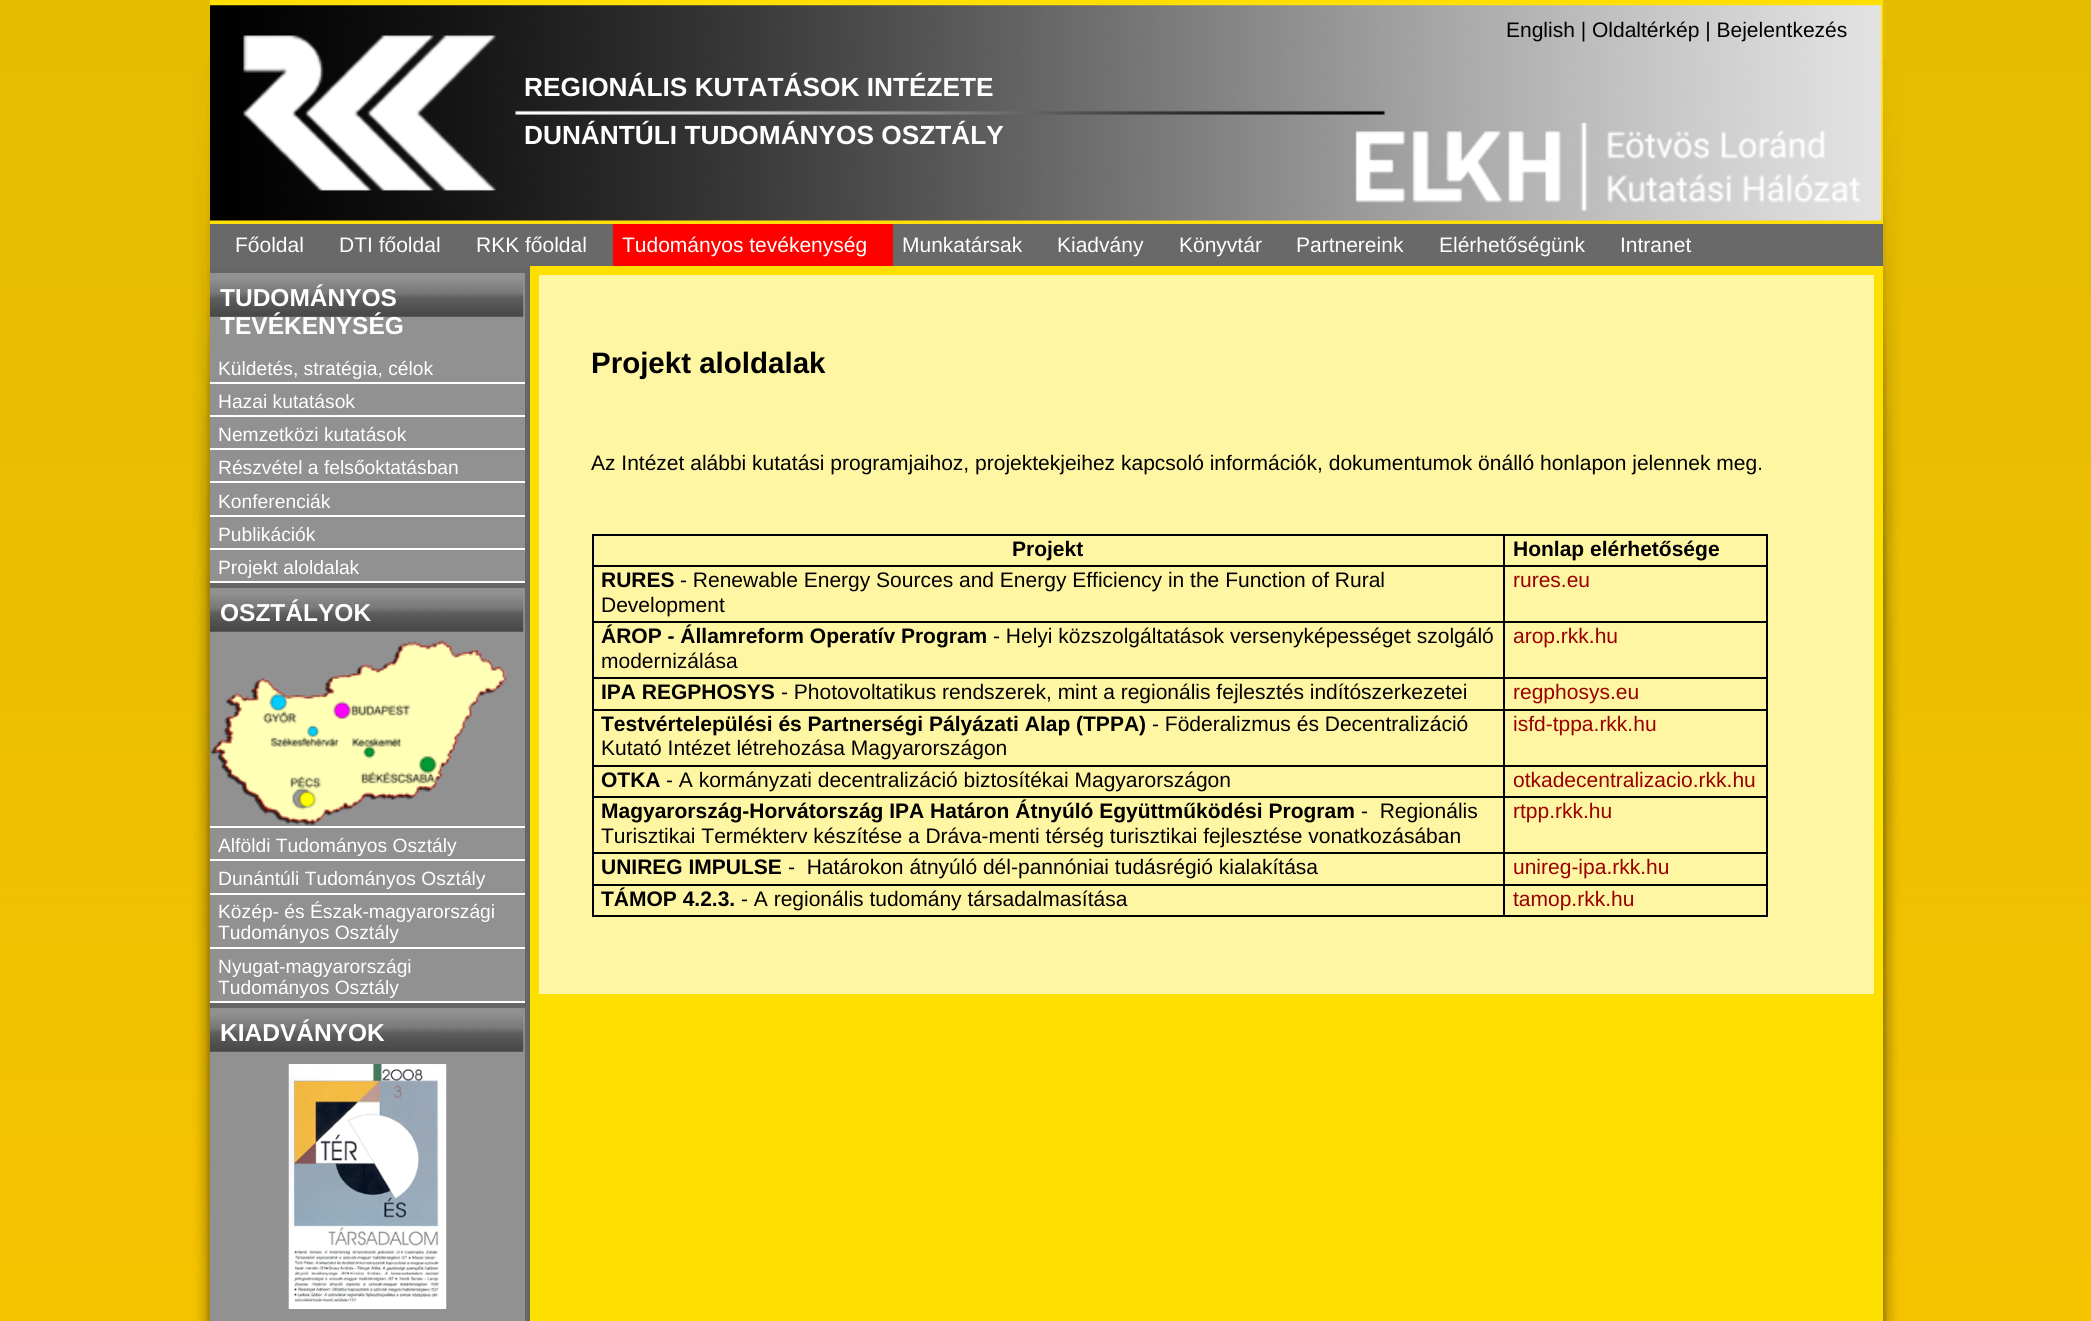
#include <cairo/cairo.h>
#include <math.h>
#include <stddef.h>

typedef struct { double x, y; const char *s; } line_t;
typedef struct { double x, y, w, h; unsigned color; } box_t;
static cairo_t *cr;

static void rgb(unsigned color)
{
	cairo_set_source_rgb(cr, (color >> 16) / 255.0, (color >> 8 & 255) / 255.0, (color & 255) / 255.0);
}

static void image(const char *path, double x, double y, double w, double h)
{
	cairo_surface_t *image = cairo_image_surface_create_from_png(path);
	cairo_save(cr);
	cairo_set_source_surface(cr, image, x, y);
	cairo_rectangle(cr, x, y, w, h);
	cairo_fill(cr);
	cairo_restore(cr);
	cairo_surface_destroy(image);
}

int main(void) {
	cairo_surface_t *surface = cairo_image_surface_create(CAIRO_FORMAT_RGB24, 2091, 1321);
	cr = cairo_create(surface);
	cairo_font_options_t *options = cairo_font_options_create();
	cairo_font_options_set_hint_metrics(options, CAIRO_HINT_METRICS_OFF);
	cairo_font_options_set_hint_style(options, CAIRO_HINT_STYLE_NONE);
	cairo_set_font_options(cr, options);
	cairo_set_miter_limit(cr, 4);
	rgb(0xffffff);
	cairo_paint(cr);
	image("img/1.png", 0, 0, 2091, 1321);
	image("img/2.png", 192, 59, 18, 1262);
	rgb(0xfde000);
	cairo_rectangle(cr, 210, 0, 1673, 1321);
	cairo_fill(cr);
	image("img/3.png", 210, 5, 1672, 216);
	{
		static const box_t items[] = {
			{210, 224, 1673, 42, 0x696969},
			{613, 224, 280, 42, 0xff0000},
			{210, 266, 320, 1055, 0x666666},
			{210, 273, 315, 308, 0x919191},
		};
		for (size_t i = 0; i < sizeof items / sizeof *items; i++) {
			rgb(items[i].color);
			cairo_rectangle(cr, items[i].x, items[i].y, items[i].w, items[i].h);
			cairo_fill(cr);
		}
	}
	image("img/4.png", 210, 280, 314, 37);
	{
		static const box_t items[] = {
			{210, 382, 315, 2, 0xffffff},
			{210, 415, 315, 2, 0xffffff},
			{210, 448, 315, 2, 0xffffff},
			{210, 481, 315, 2, 0xffffff},
			{210, 515, 315, 2, 0xffffff},
			{210, 548, 315, 2, 0xffffff},
			{210, 581, 315, 2, 0xffffff},
			{210, 588, 315, 413, 0x919191},
		};
		for (size_t i = 0; i < sizeof items / sizeof *items; i++) {
			rgb(items[i].color);
			cairo_rectangle(cr, items[i].x, items[i].y, items[i].w, items[i].h);
			cairo_fill(cr);
		}
	}
	image("img/5.png", 210, 595, 314, 37);
	rgb(0xffffff);
	cairo_rectangle(cr, 210, 826, 315, 2);
	cairo_fill(cr);
	image("img/6.png", 210, 640, 297, 186);
	{
		static const box_t items[] = {
			{210, 859, 315, 2, 0xffffff},
			{210, 893, 315, 2, 0xffffff},
			{210, 947, 315, 2, 0xffffff},
			{210, 1001, 315, 2, 0xffffff},
			{210, 1008, 315, 313, 0x919191},
		};
		for (size_t i = 0; i < sizeof items / sizeof *items; i++) {
			rgb(items[i].color);
			cairo_rectangle(cr, items[i].x, items[i].y, items[i].w, items[i].h);
			cairo_fill(cr);
		}
	}
	image("img/4.png", 210, 1015, 314, 37);
	image("img/7.png", 288, 1064, 159, 245);
	{
		static const box_t items[] = {
			{539, 275, 1335, 719, 0xfff6a3},
			{592, 534, 1176, 2, 0x000000},
			{1766, 534, 2, 383, 0x000000},
			{592, 915, 1176, 2, 0x000000},
			{592, 534, 2, 383, 0x000000},
			{1503, 565, 265, 2, 0x000000},
			{1503, 621, 265, 2, 0x000000},
			{1503, 677, 265, 2, 0x000000},
			{1503, 709, 265, 2, 0x000000},
			{1503, 765, 265, 2, 0x000000},
			{1503, 796, 265, 2, 0x000000},
			{1503, 852, 265, 2, 0x000000},
			{592, 884, 913, 2, 0x000000},
			{1503, 884, 2, 33, 0x000000},
			{1503, 884, 265, 2, 0x000000},
			{1503, 852, 2, 34, 0x000000},
			{592, 852, 913, 2, 0x000000},
			{1503, 796, 2, 58, 0x000000},
			{592, 796, 913, 2, 0x000000},
			{1503, 765, 2, 33, 0x000000},
			{592, 765, 913, 2, 0x000000},
			{1503, 709, 2, 58, 0x000000},
			{592, 709, 913, 2, 0x000000},
			{1503, 677, 2, 34, 0x000000},
			{592, 677, 913, 2, 0x000000},
			{1503, 621, 2, 58, 0x000000},
			{592, 621, 913, 2, 0x000000},
			{1503, 565, 2, 58, 0x000000},
			{592, 565, 913, 2, 0x000000},
			{1503, 534, 2, 33, 0x000000},
		};
		for (size_t i = 0; i < sizeof items / sizeof *items; i++) {
			rgb(items[i].color);
			cairo_rectangle(cr, items[i].x, items[i].y, items[i].w, items[i].h);
			cairo_fill(cr);
		}
	}
	image("img/8.png", 1883, 59, 17, 1262);
	cairo_select_font_face(cr, "Liberation Sans", CAIRO_FONT_SLANT_NORMAL, CAIRO_FONT_WEIGHT_NORMAL);
	cairo_set_font_size(cr, 21);
	cairo_move_to(cr, 1506, 37);
	cairo_show_text(cr, "English | Oldaltérkép | Bejelentkezés");
	cairo_select_font_face(cr, "Liberation Sans", CAIRO_FONT_SLANT_NORMAL, CAIRO_FONT_WEIGHT_BOLD);
	cairo_set_font_size(cr, 26.25);
	rgb(0xffffff);
	cairo_move_to(cr, 524, 96);
	cairo_show_text(cr, "REGIONÁLIS KUTATÁSOK INTÉZETE");
	cairo_move_to(cr, 524, 144);
	cairo_show_text(cr, "DUNÁNTÚLI TUDOMÁNYOS OSZTÁLY");
	cairo_select_font_face(cr, "Liberation Sans", CAIRO_FONT_SLANT_NORMAL, CAIRO_FONT_WEIGHT_NORMAL);
	cairo_set_font_size(cr, 21);
	{
		static const line_t items[] = {
			{235, 252, "Főoldal"},
			{339, 252, "DTI főoldal"},
			{476, 252, "RKK főoldal"},
			{622, 252, "Tudományos tevékenység"},
			{902, 252, "Munkatársak"},
			{1057, 252, "Kiadvány"},
			{1179, 252, "Könyvtár"},
			{1296, 252, "Partnereink"},
			{1439, 252, "Elérhetőségünk"},
			{1620, 252, "Intranet"},
		};
		for (size_t i = 0; i < sizeof items / sizeof *items; i++) {
			cairo_move_to(cr, items[i].x, items[i].y);
			cairo_show_text(cr, items[i].s);
		}
	}
	cairo_select_font_face(cr, "Liberation Sans", CAIRO_FONT_SLANT_NORMAL, CAIRO_FONT_WEIGHT_BOLD);
	cairo_set_font_size(cr, 24.5);
	cairo_move_to(cr, 220, 306);
	cairo_show_text(cr, "TUDOMÁNYOS");
	cairo_move_to(cr, 220, 334);
	cairo_show_text(cr, "TEVÉKENYSÉG");
	cairo_select_font_face(cr, "Liberation Sans", CAIRO_FONT_SLANT_NORMAL, CAIRO_FONT_WEIGHT_NORMAL);
	cairo_set_font_size(cr, 19.25);
	{
		static const line_t items[] = {
			{218, 375, "Küldetés, stratégia, célok"},
			{218, 408, "Hazai kutatások"},
			{218, 441, "Nemzetközi kutatások"},
			{218, 474, "Részvétel a felsőoktatásban"},
			{218, 508, "Konferenciák"},
			{218, 541, "Publikációk"},
			{218, 574, "Projekt aloldalak"},
		};
		for (size_t i = 0; i < sizeof items / sizeof *items; i++) {
			cairo_move_to(cr, items[i].x, items[i].y);
			cairo_show_text(cr, items[i].s);
		}
	}
	cairo_select_font_face(cr, "Liberation Sans", CAIRO_FONT_SLANT_NORMAL, CAIRO_FONT_WEIGHT_BOLD);
	cairo_set_font_size(cr, 24.5);
	cairo_move_to(cr, 220, 621);
	cairo_show_text(cr, "OSZTÁLYOK");
	cairo_select_font_face(cr, "Liberation Sans", CAIRO_FONT_SLANT_NORMAL, CAIRO_FONT_WEIGHT_NORMAL);
	cairo_set_font_size(cr, 19.25);
	{
		static const line_t items[] = {
			{218, 852, "Alföldi Tudományos Osztály"},
			{218, 885, "Dunántúli Tudományos Osztály"},
			{218, 918, "Közép- és Észak-magyarországi"},
			{218, 939, "Tudományos Osztály"},
			{218, 973, "Nyugat-magyarországi"},
			{218, 994, "Tudományos Osztály"},
		};
		for (size_t i = 0; i < sizeof items / sizeof *items; i++) {
			cairo_move_to(cr, items[i].x, items[i].y);
			cairo_show_text(cr, items[i].s);
		}
	}
	cairo_select_font_face(cr, "Liberation Sans", CAIRO_FONT_SLANT_NORMAL, CAIRO_FONT_WEIGHT_BOLD);
	cairo_set_font_size(cr, 24.5);
	cairo_move_to(cr, 220, 1041);
	cairo_show_text(cr, "KIADVÁNYOK");
	cairo_set_font_size(cr, 29.5);
	rgb(0x000000);
	cairo_move_to(cr, 591, 373);
	cairo_show_text(cr, "Projekt aloldalak");
	cairo_select_font_face(cr, "Liberation Sans", CAIRO_FONT_SLANT_NORMAL, CAIRO_FONT_WEIGHT_NORMAL);
	cairo_set_font_size(cr, 21);
	cairo_move_to(cr, 591, 470);
	cairo_show_text(cr, "Az Intézet alábbi kutatási programjaihoz, projektekjeihez kapcsoló információk, dokumentumok önálló honlapon jelennek meg.");
	cairo_select_font_face(cr, "Liberation Sans", CAIRO_FONT_SLANT_NORMAL, CAIRO_FONT_WEIGHT_BOLD);
	{
		static const line_t items[] = {
			{1012, 556, "Projekt"},
			{1513, 556, "Honlap elérhetősége"},
			{601, 587, "RURES"},
		};
		for (size_t i = 0; i < sizeof items / sizeof *items; i++) {
			cairo_move_to(cr, items[i].x, items[i].y);
			cairo_show_text(cr, items[i].s);
		}
	}
	cairo_select_font_face(cr, "Liberation Sans", CAIRO_FONT_SLANT_NORMAL, CAIRO_FONT_WEIGHT_NORMAL);
	cairo_move_to(cr, 680, 587);
	cairo_show_text(cr, "- Renewable Energy Sources and Energy Efficiency in the Function of Rural");
	cairo_move_to(cr, 601, 612);
	cairo_show_text(cr, "Development");
	rgb(0x990000);
	cairo_move_to(cr, 1513, 587);
	cairo_show_text(cr, "rures.eu");
	cairo_select_font_face(cr, "Liberation Sans", CAIRO_FONT_SLANT_NORMAL, CAIRO_FONT_WEIGHT_BOLD);
	rgb(0x000000);
	cairo_move_to(cr, 601, 643);
	cairo_show_text(cr, "ÁROP - Államreform Operatív Program");
	cairo_select_font_face(cr, "Liberation Sans", CAIRO_FONT_SLANT_NORMAL, CAIRO_FONT_WEIGHT_NORMAL);
	cairo_move_to(cr, 993, 643);
	cairo_show_text(cr, "- Helyi közszolgáltatások versenyképességet szolgáló");
	cairo_move_to(cr, 601, 668);
	cairo_show_text(cr, "modernizálása");
	rgb(0x990000);
	cairo_move_to(cr, 1513, 643);
	cairo_show_text(cr, "arop.rkk.hu");
	cairo_select_font_face(cr, "Liberation Sans", CAIRO_FONT_SLANT_NORMAL, CAIRO_FONT_WEIGHT_BOLD);
	rgb(0x000000);
	cairo_move_to(cr, 601, 699);
	cairo_show_text(cr, "IPA REGPHOSYS");
	cairo_select_font_face(cr, "Liberation Sans", CAIRO_FONT_SLANT_NORMAL, CAIRO_FONT_WEIGHT_NORMAL);
	cairo_move_to(cr, 781, 699);
	cairo_show_text(cr, "- Photovoltatikus rendszerek, mint a regionális fejlesztés indítószerkezetei");
	rgb(0x990000);
	cairo_move_to(cr, 1513, 699);
	cairo_show_text(cr, "regphosys.eu");
	cairo_select_font_face(cr, "Liberation Sans", CAIRO_FONT_SLANT_NORMAL, CAIRO_FONT_WEIGHT_BOLD);
	rgb(0x000000);
	cairo_move_to(cr, 601, 731);
	cairo_show_text(cr, "Testvértelepülési és Partnerségi Pályázati Alap (TPPA)");
	cairo_select_font_face(cr, "Liberation Sans", CAIRO_FONT_SLANT_NORMAL, CAIRO_FONT_WEIGHT_NORMAL);
	cairo_move_to(cr, 1152, 731);
	cairo_show_text(cr, "- Föderalizmus és Decentralizáció");
	cairo_move_to(cr, 601, 755);
	cairo_show_text(cr, "Kutató Intézet létrehozása Magyarországon");
	rgb(0x990000);
	cairo_move_to(cr, 1513, 731);
	cairo_show_text(cr, "isfd-tppa.rkk.hu");
	cairo_select_font_face(cr, "Liberation Sans", CAIRO_FONT_SLANT_NORMAL, CAIRO_FONT_WEIGHT_BOLD);
	rgb(0x000000);
	cairo_move_to(cr, 601, 787);
	cairo_show_text(cr, "OTKA");
	cairo_select_font_face(cr, "Liberation Sans", CAIRO_FONT_SLANT_NORMAL, CAIRO_FONT_WEIGHT_NORMAL);
	cairo_move_to(cr, 666, 787);
	cairo_show_text(cr, "- A kormányzati decentralizáció biztosítékai Magyarországon");
	rgb(0x990000);
	cairo_move_to(cr, 1513, 787);
	cairo_show_text(cr, "otkadecentralizacio.rkk.hu");
	cairo_select_font_face(cr, "Liberation Sans", CAIRO_FONT_SLANT_NORMAL, CAIRO_FONT_WEIGHT_BOLD);
	rgb(0x000000);
	cairo_move_to(cr, 601, 818);
	cairo_show_text(cr, "Magyarország-Horvátország IPA Határon Átnyúló Együttműködési Program");
	cairo_select_font_face(cr, "Liberation Sans", CAIRO_FONT_SLANT_NORMAL, CAIRO_FONT_WEIGHT_NORMAL);
	cairo_move_to(cr, 1361, 818);
	cairo_show_text(cr, "-  Regionális");
	cairo_move_to(cr, 601, 843);
	cairo_show_text(cr, "Turisztikai Termékterv készítése a Dráva-menti térség turisztikai fejlesztése vonatkozásában");
	rgb(0x990000);
	cairo_move_to(cr, 1513, 818);
	cairo_show_text(cr, "rtpp.rkk.hu");
	cairo_select_font_face(cr, "Liberation Sans", CAIRO_FONT_SLANT_NORMAL, CAIRO_FONT_WEIGHT_BOLD);
	rgb(0x000000);
	cairo_move_to(cr, 601, 874);
	cairo_show_text(cr, "UNIREG IMPULSE");
	cairo_select_font_face(cr, "Liberation Sans", CAIRO_FONT_SLANT_NORMAL, CAIRO_FONT_WEIGHT_NORMAL);
	cairo_move_to(cr, 788, 874);
	cairo_show_text(cr, "-  Határokon átnyúló dél-pannóniai tudásrégió kialakítása");
	rgb(0x990000);
	cairo_move_to(cr, 1513, 874);
	cairo_show_text(cr, "unireg-ipa.rkk.hu");
	cairo_select_font_face(cr, "Liberation Sans", CAIRO_FONT_SLANT_NORMAL, CAIRO_FONT_WEIGHT_BOLD);
	rgb(0x000000);
	cairo_move_to(cr, 601, 906);
	cairo_show_text(cr, "TÁMOP 4.2.3.");
	cairo_select_font_face(cr, "Liberation Sans", CAIRO_FONT_SLANT_NORMAL, CAIRO_FONT_WEIGHT_NORMAL);
	cairo_move_to(cr, 741, 906);
	cairo_show_text(cr, "- A regionális tudomány társadalmasítása");
	rgb(0x990000);
	cairo_move_to(cr, 1513, 906);
	cairo_show_text(cr, "tamop.rkk.hu");
	cairo_surface_write_to_png(surface, "page.png");
	cairo_font_options_destroy(options);
	cairo_destroy(cr);
	cairo_surface_destroy(surface);
	return 0;
}
